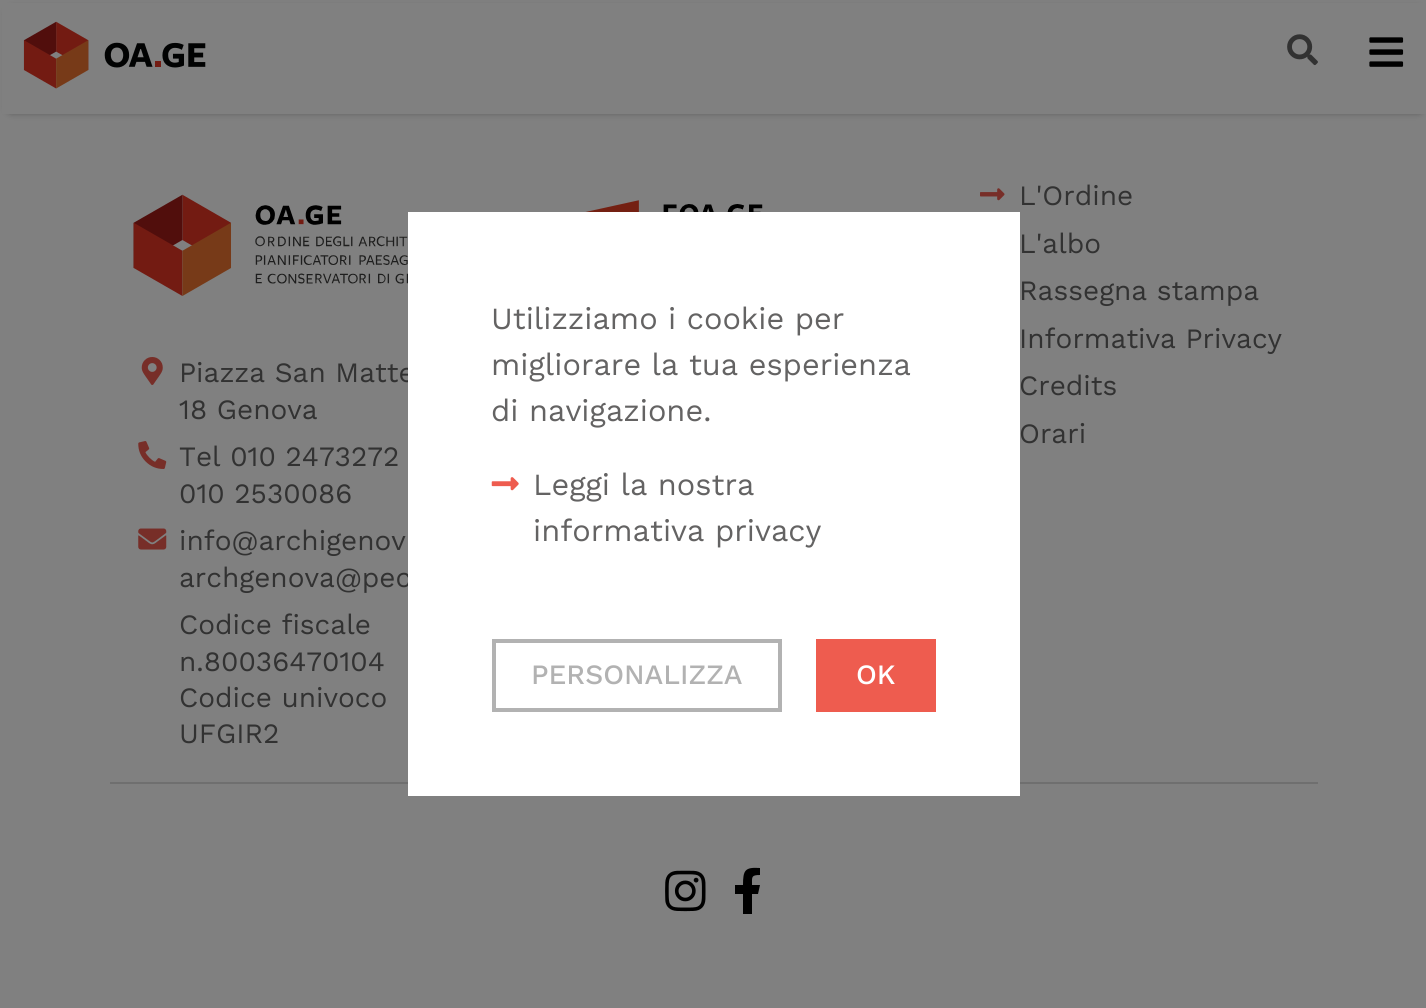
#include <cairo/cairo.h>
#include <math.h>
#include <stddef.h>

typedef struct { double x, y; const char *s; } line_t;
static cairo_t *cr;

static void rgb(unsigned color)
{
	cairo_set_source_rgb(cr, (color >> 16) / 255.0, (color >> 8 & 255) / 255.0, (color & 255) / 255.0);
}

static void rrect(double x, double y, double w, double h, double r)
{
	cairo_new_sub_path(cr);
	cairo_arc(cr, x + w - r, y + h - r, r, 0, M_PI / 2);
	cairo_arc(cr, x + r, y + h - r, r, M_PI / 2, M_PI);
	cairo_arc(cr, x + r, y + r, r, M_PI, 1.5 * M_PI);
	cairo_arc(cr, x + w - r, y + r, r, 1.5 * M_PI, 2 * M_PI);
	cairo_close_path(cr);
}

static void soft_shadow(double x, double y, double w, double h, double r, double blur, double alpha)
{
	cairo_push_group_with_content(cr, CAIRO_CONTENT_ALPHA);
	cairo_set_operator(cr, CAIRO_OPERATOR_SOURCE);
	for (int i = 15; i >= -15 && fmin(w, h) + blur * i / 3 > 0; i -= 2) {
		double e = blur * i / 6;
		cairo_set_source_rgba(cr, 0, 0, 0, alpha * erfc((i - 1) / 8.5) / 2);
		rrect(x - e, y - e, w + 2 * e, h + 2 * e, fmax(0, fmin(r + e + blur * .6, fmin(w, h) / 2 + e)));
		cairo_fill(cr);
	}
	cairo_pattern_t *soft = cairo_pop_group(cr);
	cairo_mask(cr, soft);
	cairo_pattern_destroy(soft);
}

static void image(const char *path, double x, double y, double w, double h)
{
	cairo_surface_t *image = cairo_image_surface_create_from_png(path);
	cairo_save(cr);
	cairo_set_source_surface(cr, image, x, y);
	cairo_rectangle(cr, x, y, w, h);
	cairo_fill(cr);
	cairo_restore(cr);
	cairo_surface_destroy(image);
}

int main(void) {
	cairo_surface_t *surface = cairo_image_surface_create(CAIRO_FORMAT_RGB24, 1426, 1008);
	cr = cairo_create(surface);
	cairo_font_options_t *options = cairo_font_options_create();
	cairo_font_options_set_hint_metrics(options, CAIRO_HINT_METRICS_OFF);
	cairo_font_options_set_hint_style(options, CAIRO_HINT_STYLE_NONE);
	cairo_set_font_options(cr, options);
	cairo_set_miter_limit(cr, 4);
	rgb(0x808080);
	cairo_paint(cr);
	rgb(0x000000);
	soft_shadow(11, 12, 1408, 97, 0, 4.5, 1);
	rgb(0x808080);
	cairo_rectangle(cr, 2, 3, 1424, 111);
	cairo_fill(cr);
	image("img/1.png", 23, 21, 183, 68);
	image("img/2.png", 1287, 34, 31, 32);
	image("img/3.png", 1369, 37, 35, 30);
	image("img/4.png", 585, 200, 178, 12);
	image("img/5.png", 980, 188, 25, 13);
	image("img/6.png", 133, 194, 275, 102);
	image("img/7.png", 141, 357, 22, 28);
	image("img/8.png", 138, 441, 29, 28);
	image("img/9.png", 138, 528, 29, 22);
	rgb(0x6f6f6f);
	cairo_rectangle(cr, 110, 782, 1208, 2);
	cairo_fill(cr);
	image("img/10.png", 665, 870, 41, 42);
	rgb(0x000000);
	cairo_new_path(cr);
	cairo_move_to(cr, 758, 894);
	cairo_line_to(cr, 752, 894);
	cairo_line_to(cr, 752, 914);
	cairo_line_to(cr, 743, 914);
	cairo_line_to(cr, 743, 894);
	cairo_line_to(cr, 735, 894);
	cairo_line_to(cr, 735, 885);
	cairo_line_to(cr, 743, 885);
	cairo_curve_to(cr, 743, 870, 745, 867, 760, 868);
	cairo_line_to(cr, 760, 875);
	cairo_curve_to(cr, 751, 875, 752, 877, 752, 885);
	cairo_line_to(cr, 760, 885);
	cairo_close_path(cr);
	cairo_fill(cr);
	cairo_select_font_face(cr, "Work Sans", CAIRO_FONT_SLANT_NORMAL, CAIRO_FONT_WEIGHT_NORMAL);
	cairo_set_font_size(cr, 28);
	rgb(0x323232);
	{
		static const line_t items[] = {
			{1019, 205, "L'Ordine"},
			{1019, 253, "L'albo"},
			{1019, 300, "Rassegna stampa"},
			{1019, 348, "Informativa Privacy"},
			{1019, 395, "Credits"},
			{1019, 443, "Orari"},
			{179, 382, "Piazza San Matte"},
			{179, 419, "18 Genova"},
			{179, 466, "Tel 010 2473272"},
			{179, 503, "010 2530086"},
			{179, 550, "info@archigenov"},
			{179, 587, "archgenova@pec"},
			{179, 634, "Codice fiscale"},
			{179, 671, "n.80036470104"},
			{179, 707, "Codice univoco"},
			{179, 743, "UFGIR2"},
		};
		for (size_t i = 0; i < sizeof items / sizeof *items; i++) {
			cairo_move_to(cr, items[i].x, items[i].y);
			cairo_show_text(cr, items[i].s);
		}
	}
	rgb(0xffffff);
	cairo_rectangle(cr, 408, 212, 612, 584);
	cairo_fill(cr);
	cairo_set_font_size(cr, 30.75);
	rgb(0x646363);
	{
		static const line_t items[] = {
			{491, 329, "Utilizziamo i cookie per"},
			{491, 375, "migliorare la tua esperienza"},
			{491, 421, "di navigazione."},
		};
		for (size_t i = 0; i < sizeof items / sizeof *items; i++) {
			cairo_move_to(cr, items[i].x, items[i].y);
			cairo_show_text(cr, items[i].s);
		}
	}
	image("img/11.png", 491, 477, 28, 14);
	cairo_move_to(cr, 533, 495);
	cairo_show_text(cr, "Leggi la nostra");
	cairo_move_to(cr, 533, 541);
	cairo_show_text(cr, "informativa privacy");
	cairo_rectangle(cr, 494, 641, 286, 69);
	rgb(0xb2b2b2);
	cairo_set_line_width(cr, 4);
	cairo_stroke(cr);
	cairo_select_font_face(cr, "Work Sans Medium", CAIRO_FONT_SLANT_NORMAL, CAIRO_FONT_WEIGHT_NORMAL);
	cairo_set_font_size(cr, 28);
	cairo_move_to(cr, 531, 684);
	cairo_show_text(cr, "PERSONALIZZA");
	rgb(0xee5c4f);
	cairo_rectangle(cr, 816, 639, 120, 73);
	cairo_fill(cr);
	rgb(0xffffff);
	cairo_move_to(cr, 856, 684);
	cairo_show_text(cr, "OK");
	cairo_surface_write_to_png(surface, "page.png");
	cairo_font_options_destroy(options);
	cairo_destroy(cr);
	cairo_surface_destroy(surface);
	return 0;
}
